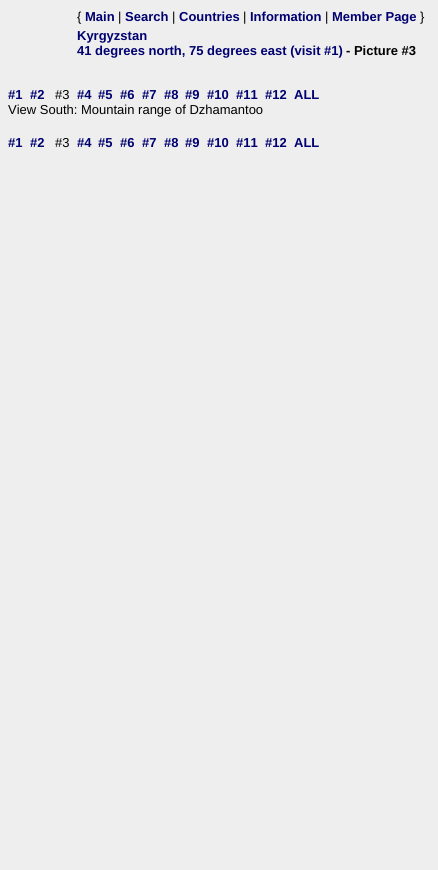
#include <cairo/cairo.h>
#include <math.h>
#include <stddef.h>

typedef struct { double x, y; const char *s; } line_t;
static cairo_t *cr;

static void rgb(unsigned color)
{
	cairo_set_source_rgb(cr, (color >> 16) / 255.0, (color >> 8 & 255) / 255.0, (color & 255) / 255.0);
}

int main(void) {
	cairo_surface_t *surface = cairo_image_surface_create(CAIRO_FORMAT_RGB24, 438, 870);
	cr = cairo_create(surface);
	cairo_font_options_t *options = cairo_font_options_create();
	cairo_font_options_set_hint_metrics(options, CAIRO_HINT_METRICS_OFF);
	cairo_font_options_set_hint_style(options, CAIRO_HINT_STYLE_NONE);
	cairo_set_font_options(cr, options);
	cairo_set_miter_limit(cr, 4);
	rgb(0xeeeeee);
	cairo_paint(cr);
	cairo_select_font_face(cr, "Liberation Sans", CAIRO_FONT_SLANT_NORMAL, CAIRO_FONT_WEIGHT_NORMAL);
	cairo_set_font_size(cr, 13);
	rgb(0x000000);
	cairo_move_to(cr, 77, 21);
	cairo_show_text(cr, "{");
	cairo_select_font_face(cr, "Liberation Sans", CAIRO_FONT_SLANT_NORMAL, CAIRO_FONT_WEIGHT_BOLD);
	rgb(0x000070);
	cairo_move_to(cr, 85, 21);
	cairo_show_text(cr, "Main");
	cairo_select_font_face(cr, "Liberation Sans", CAIRO_FONT_SLANT_NORMAL, CAIRO_FONT_WEIGHT_NORMAL);
	rgb(0x000000);
	cairo_move_to(cr, 118, 21);
	cairo_show_text(cr, "|");
	cairo_select_font_face(cr, "Liberation Sans", CAIRO_FONT_SLANT_NORMAL, CAIRO_FONT_WEIGHT_BOLD);
	rgb(0x000070);
	cairo_move_to(cr, 125, 21);
	cairo_show_text(cr, "Search");
	cairo_select_font_face(cr, "Liberation Sans", CAIRO_FONT_SLANT_NORMAL, CAIRO_FONT_WEIGHT_NORMAL);
	rgb(0x000000);
	cairo_move_to(cr, 172, 21);
	cairo_show_text(cr, "|");
	cairo_select_font_face(cr, "Liberation Sans", CAIRO_FONT_SLANT_NORMAL, CAIRO_FONT_WEIGHT_BOLD);
	rgb(0x000070);
	cairo_move_to(cr, 179, 21);
	cairo_show_text(cr, "Countries");
	cairo_select_font_face(cr, "Liberation Sans", CAIRO_FONT_SLANT_NORMAL, CAIRO_FONT_WEIGHT_NORMAL);
	rgb(0x000000);
	cairo_move_to(cr, 243, 21);
	cairo_show_text(cr, "|");
	cairo_select_font_face(cr, "Liberation Sans", CAIRO_FONT_SLANT_NORMAL, CAIRO_FONT_WEIGHT_BOLD);
	rgb(0x000070);
	cairo_move_to(cr, 250, 21);
	cairo_show_text(cr, "Information");
	cairo_select_font_face(cr, "Liberation Sans", CAIRO_FONT_SLANT_NORMAL, CAIRO_FONT_WEIGHT_NORMAL);
	rgb(0x000000);
	cairo_move_to(cr, 325, 21);
	cairo_show_text(cr, "|");
	cairo_select_font_face(cr, "Liberation Sans", CAIRO_FONT_SLANT_NORMAL, CAIRO_FONT_WEIGHT_BOLD);
	rgb(0x000070);
	cairo_move_to(cr, 332, 21);
	cairo_show_text(cr, "Member Page");
	cairo_select_font_face(cr, "Liberation Sans", CAIRO_FONT_SLANT_NORMAL, CAIRO_FONT_WEIGHT_NORMAL);
	rgb(0x000000);
	cairo_move_to(cr, 420, 21);
	cairo_show_text(cr, "}");
	cairo_select_font_face(cr, "Liberation Sans", CAIRO_FONT_SLANT_NORMAL, CAIRO_FONT_WEIGHT_BOLD);
	rgb(0x000070);
	cairo_move_to(cr, 77, 40);
	cairo_show_text(cr, "Kyrgyzstan");
	cairo_move_to(cr, 77, 55);
	cairo_show_text(cr, "41 degrees north, 75 degrees east (visit #1)");
	rgb(0x000000);
	cairo_move_to(cr, 346, 55);
	cairo_show_text(cr, "- Picture #3");
	rgb(0x000070);
	cairo_move_to(cr, 8, 99);
	cairo_show_text(cr, "#1");
	cairo_move_to(cr, 30, 99);
	cairo_show_text(cr, "#2");
	cairo_select_font_face(cr, "Liberation Sans", CAIRO_FONT_SLANT_NORMAL, CAIRO_FONT_WEIGHT_NORMAL);
	rgb(0x000000);
	cairo_move_to(cr, 55, 99);
	cairo_show_text(cr, "#3");
	cairo_select_font_face(cr, "Liberation Sans", CAIRO_FONT_SLANT_NORMAL, CAIRO_FONT_WEIGHT_BOLD);
	rgb(0x000070);
	{
		static const line_t items[] = {
			{77, 99, "#4"},
			{98, 99, "#5"},
			{120, 99, "#6"},
			{142, 99, "#7"},
			{164, 99, "#8"},
			{185, 99, "#9"},
			{207, 99, "#10"},
			{236, 99, "#11"},
			{265, 99, "#12"},
			{294, 99, "ALL"},
		};
		for (size_t i = 0; i < sizeof items / sizeof *items; i++) {
			cairo_move_to(cr, items[i].x, items[i].y);
			cairo_show_text(cr, items[i].s);
		}
	}
	cairo_select_font_face(cr, "Liberation Sans", CAIRO_FONT_SLANT_NORMAL, CAIRO_FONT_WEIGHT_NORMAL);
	rgb(0x000000);
	cairo_move_to(cr, 8, 114);
	cairo_show_text(cr, "View South: Mountain range of Dzhamantoo");
	cairo_select_font_face(cr, "Liberation Sans", CAIRO_FONT_SLANT_NORMAL, CAIRO_FONT_WEIGHT_BOLD);
	rgb(0x000070);
	cairo_move_to(cr, 8, 147);
	cairo_show_text(cr, "#1");
	cairo_move_to(cr, 30, 147);
	cairo_show_text(cr, "#2");
	cairo_select_font_face(cr, "Liberation Sans", CAIRO_FONT_SLANT_NORMAL, CAIRO_FONT_WEIGHT_NORMAL);
	rgb(0x000000);
	cairo_move_to(cr, 55, 147);
	cairo_show_text(cr, "#3");
	cairo_select_font_face(cr, "Liberation Sans", CAIRO_FONT_SLANT_NORMAL, CAIRO_FONT_WEIGHT_BOLD);
	rgb(0x000070);
	{
		static const line_t items[] = {
			{77, 147, "#4"},
			{98, 147, "#5"},
			{120, 147, "#6"},
			{142, 147, "#7"},
			{164, 147, "#8"},
			{185, 147, "#9"},
			{207, 147, "#10"},
			{236, 147, "#11"},
			{265, 147, "#12"},
			{294, 147, "ALL"},
		};
		for (size_t i = 0; i < sizeof items / sizeof *items; i++) {
			cairo_move_to(cr, items[i].x, items[i].y);
			cairo_show_text(cr, items[i].s);
		}
	}
	cairo_surface_write_to_png(surface, "page.png");
	cairo_font_options_destroy(options);
	cairo_destroy(cr);
	cairo_surface_destroy(surface);
	return 0;
}
